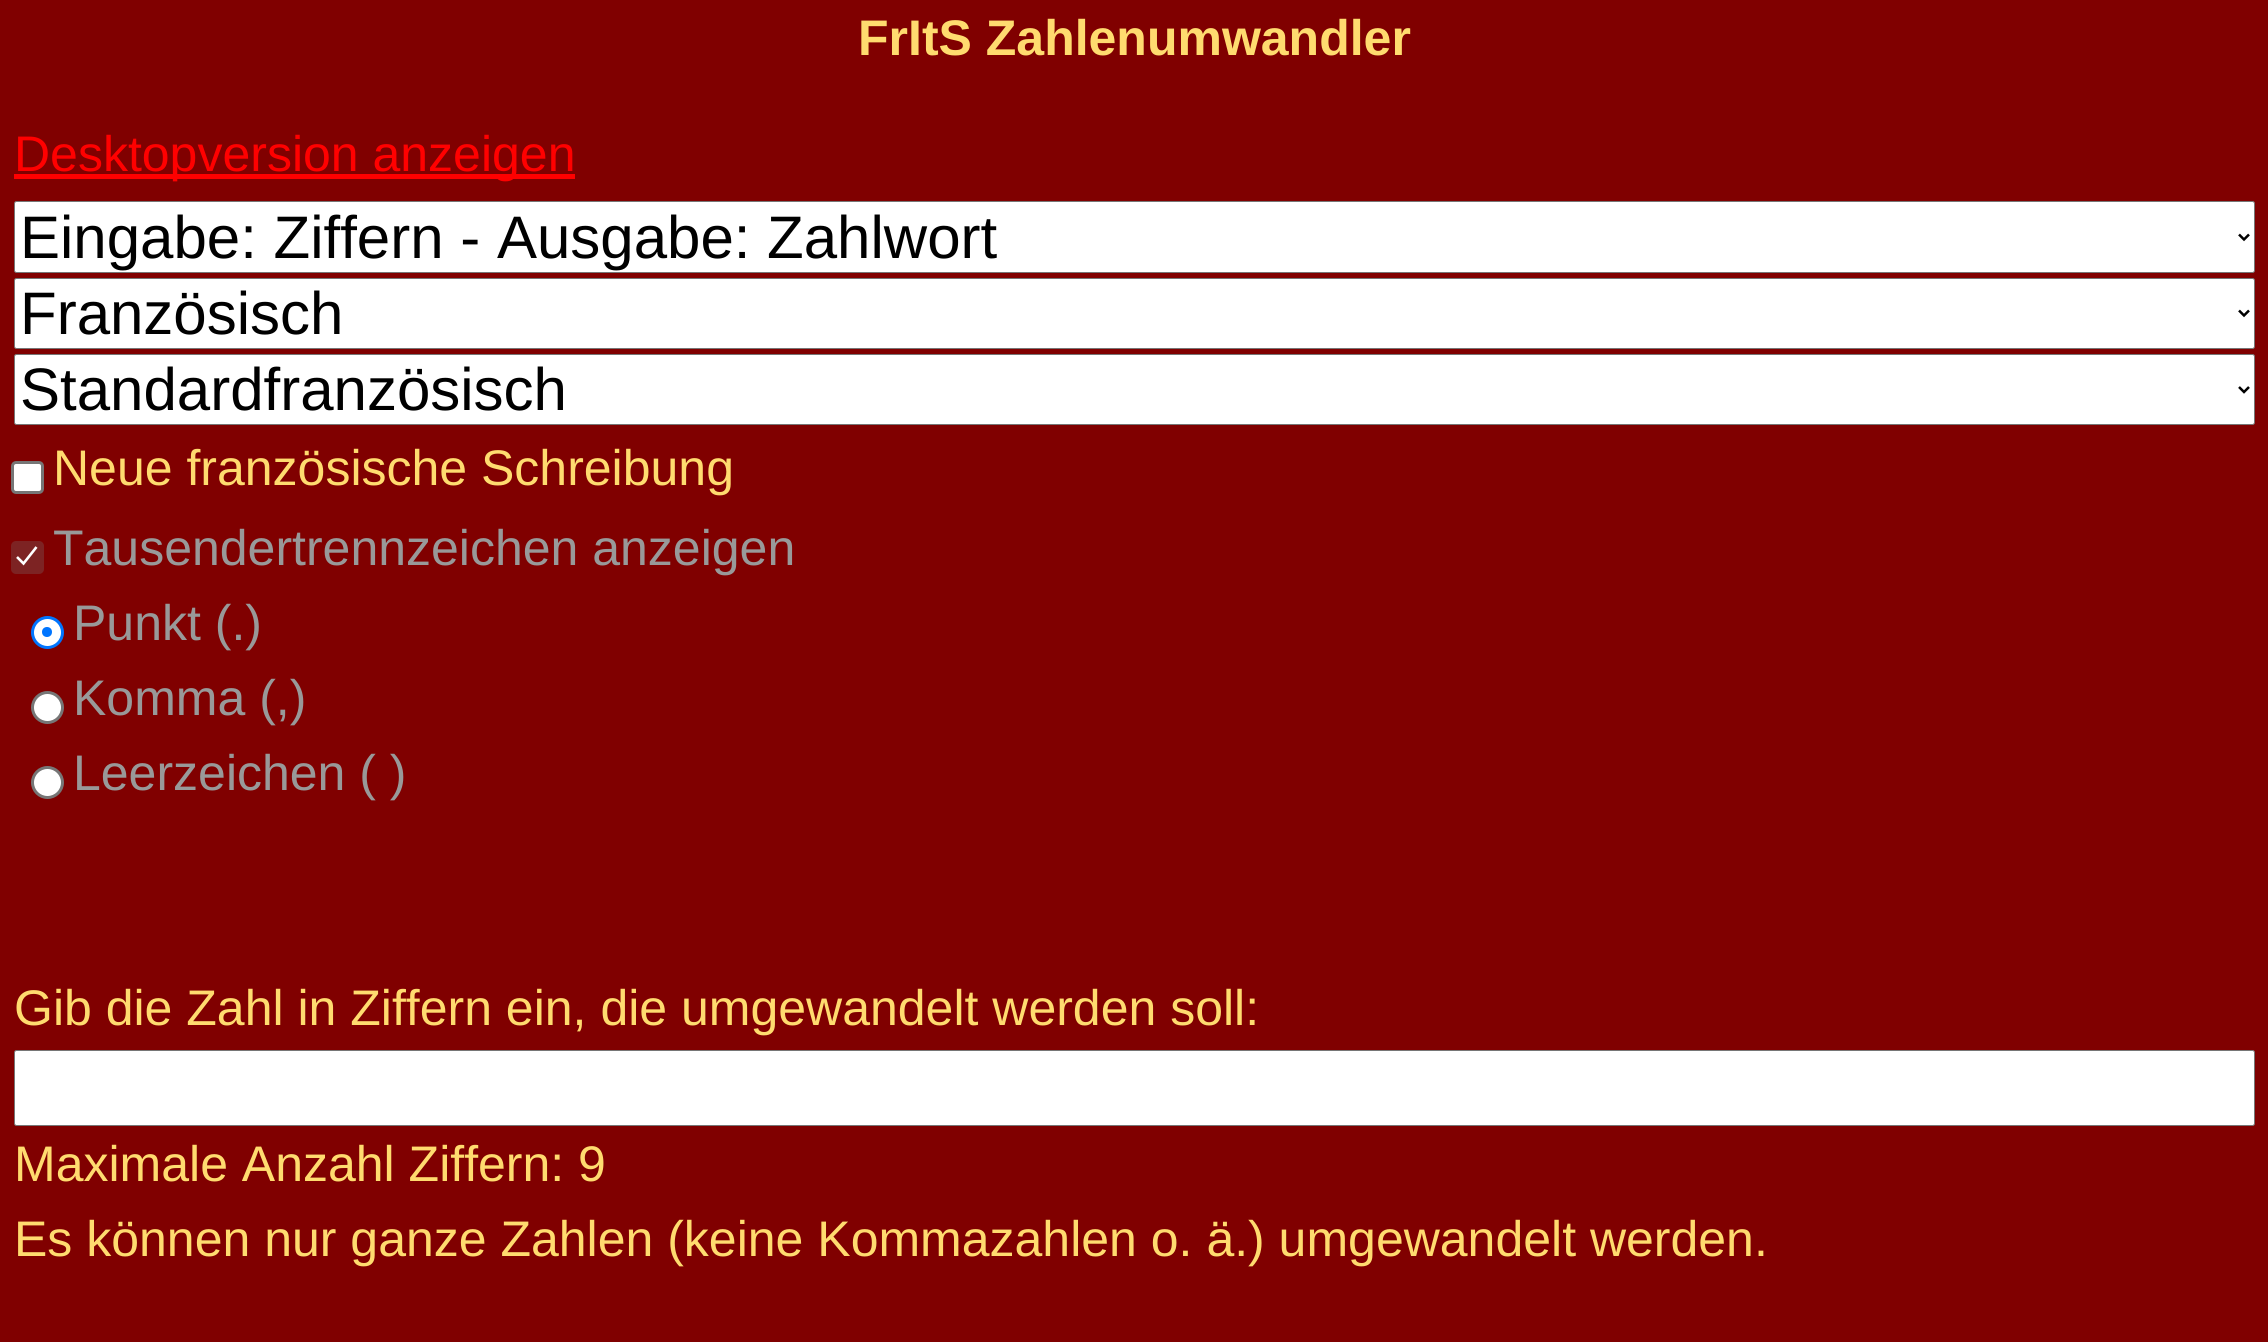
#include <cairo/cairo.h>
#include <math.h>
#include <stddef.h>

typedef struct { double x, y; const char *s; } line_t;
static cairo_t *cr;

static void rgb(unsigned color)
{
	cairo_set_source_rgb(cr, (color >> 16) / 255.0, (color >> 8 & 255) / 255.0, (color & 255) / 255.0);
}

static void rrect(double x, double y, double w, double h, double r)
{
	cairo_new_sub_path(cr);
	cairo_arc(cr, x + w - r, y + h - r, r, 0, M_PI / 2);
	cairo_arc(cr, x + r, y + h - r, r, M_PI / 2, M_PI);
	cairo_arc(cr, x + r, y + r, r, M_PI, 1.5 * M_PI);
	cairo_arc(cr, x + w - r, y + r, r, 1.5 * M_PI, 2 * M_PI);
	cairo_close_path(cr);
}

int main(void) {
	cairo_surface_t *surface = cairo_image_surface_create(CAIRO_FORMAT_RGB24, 2268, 1342);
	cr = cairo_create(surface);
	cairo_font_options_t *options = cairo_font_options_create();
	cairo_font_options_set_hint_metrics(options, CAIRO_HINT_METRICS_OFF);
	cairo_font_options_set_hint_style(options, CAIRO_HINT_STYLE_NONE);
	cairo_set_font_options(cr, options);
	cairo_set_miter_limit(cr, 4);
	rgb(0x800000);
	cairo_paint(cr);
	rgb(0xff0000);
	cairo_rectangle(cr, 14, 174, 561, 5);
	cairo_fill(cr);
	rgb(0xffffff);
	rrect(14.5, 201.5, 2240, 71, 2);
	cairo_fill_preserve(cr);
	rgb(0x767676);
	cairo_set_line_width(cr, 1);
	cairo_stroke(cr);
	cairo_new_path(cr);
	cairo_move_to(cr, 2239, 234.5);
	cairo_line_to(cr, 2244, 239.5);
	cairo_line_to(cr, 2249, 234.5);
	rgb(0x000000);
	cairo_set_line_width(cr, 2.5);
	cairo_stroke(cr);
	rgb(0xffffff);
	rrect(14.5, 278.5, 2240, 70, 2);
	cairo_fill_preserve(cr);
	rgb(0x767676);
	cairo_set_line_width(cr, 1);
	cairo_stroke(cr);
	cairo_new_path(cr);
	cairo_move_to(cr, 2239, 310.5);
	cairo_line_to(cr, 2244, 315.5);
	cairo_line_to(cr, 2249, 310.5);
	rgb(0x000000);
	cairo_set_line_width(cr, 2.5);
	cairo_stroke(cr);
	rgb(0xffffff);
	rrect(14.5, 354.5, 2240, 70, 2);
	cairo_fill_preserve(cr);
	rgb(0x767676);
	cairo_set_line_width(cr, 1);
	cairo_stroke(cr);
	cairo_new_path(cr);
	cairo_move_to(cr, 2239, 387);
	cairo_line_to(cr, 2244, 392);
	cairo_line_to(cr, 2249, 387);
	rgb(0x000000);
	cairo_set_line_width(cr, 2.5);
	cairo_stroke(cr);
	rgb(0xffffff);
	rrect(12.5, 462.5, 30, 30, 3.5);
	cairo_fill_preserve(cr);
	rgb(0x767676);
	cairo_set_line_width(cr, 3);
	cairo_stroke(cr);
	rgb(0x7d2323);
	rrect(11, 541, 33, 33, 5);
	cairo_fill(cr);
	cairo_new_path(cr);
	cairo_move_to(cr, 17, 557);
	cairo_line_to(cr, 23.5, 563.5);
	cairo_line_to(cr, 36.5, 547);
	rgb(0xffffff);
	cairo_set_line_width(cr, 2.6);
	cairo_stroke(cr);
	cairo_arc(cr, 47.5, 632.5, 15, 0, 2 * M_PI);
	cairo_fill_preserve(cr);
	rgb(0x0075ff);
	cairo_set_line_width(cr, 3);
	cairo_stroke(cr);
	cairo_arc(cr, 47, 632, 5, 0, 2 * M_PI);
	cairo_fill(cr);
	rgb(0xffffff);
	cairo_arc(cr, 47.5, 707.5, 15, 0, 2 * M_PI);
	cairo_fill_preserve(cr);
	rgb(0x767676);
	cairo_stroke(cr);
	rgb(0xffffff);
	cairo_arc(cr, 47.5, 782.5, 15, 0, 2 * M_PI);
	cairo_fill_preserve(cr);
	rgb(0x767676);
	cairo_stroke(cr);
	rgb(0xffffff);
	rrect(14.5, 1050.5, 2240, 75, 2);
	cairo_fill_preserve(cr);
	rgb(0x767676);
	cairo_set_line_width(cr, 1);
	cairo_stroke(cr);
	cairo_select_font_face(cr, "Liberation Sans", CAIRO_FONT_SLANT_NORMAL, CAIRO_FONT_WEIGHT_BOLD);
	cairo_set_font_size(cr, 50);
	rgb(0xffdb6f);
	cairo_move_to(cr, 858, 55);
	cairo_show_text(cr, "FrItS Zahlenumwandler");
	cairo_select_font_face(cr, "Liberation Sans", CAIRO_FONT_SLANT_NORMAL, CAIRO_FONT_WEIGHT_NORMAL);
	rgb(0xff0000);
	cairo_move_to(cr, 14, 171);
	cairo_show_text(cr, "Desktopversion anzeigen");
	cairo_set_font_size(cr, 60);
	rgb(0x000000);
	{
		static const line_t items[] = {
			{20, 258, "Eingabe: Ziffern - Ausgabe: Zahlwort"},
			{20, 334, "Französisch"},
			{20, 410, "Standardfranzösisch"},
		};
		for (size_t i = 0; i < sizeof items / sizeof *items; i++) {
			cairo_move_to(cr, items[i].x, items[i].y);
			cairo_show_text(cr, items[i].s);
		}
	}
	cairo_set_font_size(cr, 50);
	rgb(0xffdb6f);
	cairo_move_to(cr, 53, 485);
	cairo_show_text(cr, "Neue französische Schreibung");
	rgb(0x999999);
	{
		static const line_t items[] = {
			{53, 565, "Tausendertrennzeichen anzeigen"},
			{73, 640, "Punkt (.)"},
			{73, 715, "Komma (,)"},
			{73, 790, "Leerzeichen ( )"},
		};
		for (size_t i = 0; i < sizeof items / sizeof *items; i++) {
			cairo_move_to(cr, items[i].x, items[i].y);
			cairo_show_text(cr, items[i].s);
		}
	}
	rgb(0xffdb6f);
	{
		static const line_t items[] = {
			{14, 1025, "Gib die Zahl in Ziffern ein, die umgewandelt werden soll:"},
			{14, 1181, "Maximale Anzahl Ziffern: 9"},
			{14, 1256, "Es können nur ganze Zahlen (keine Kommazahlen o. ä.) umgewandelt werden."},
		};
		for (size_t i = 0; i < sizeof items / sizeof *items; i++) {
			cairo_move_to(cr, items[i].x, items[i].y);
			cairo_show_text(cr, items[i].s);
		}
	}
	cairo_surface_write_to_png(surface, "page.png");
	cairo_font_options_destroy(options);
	cairo_destroy(cr);
	cairo_surface_destroy(surface);
	return 0;
}
